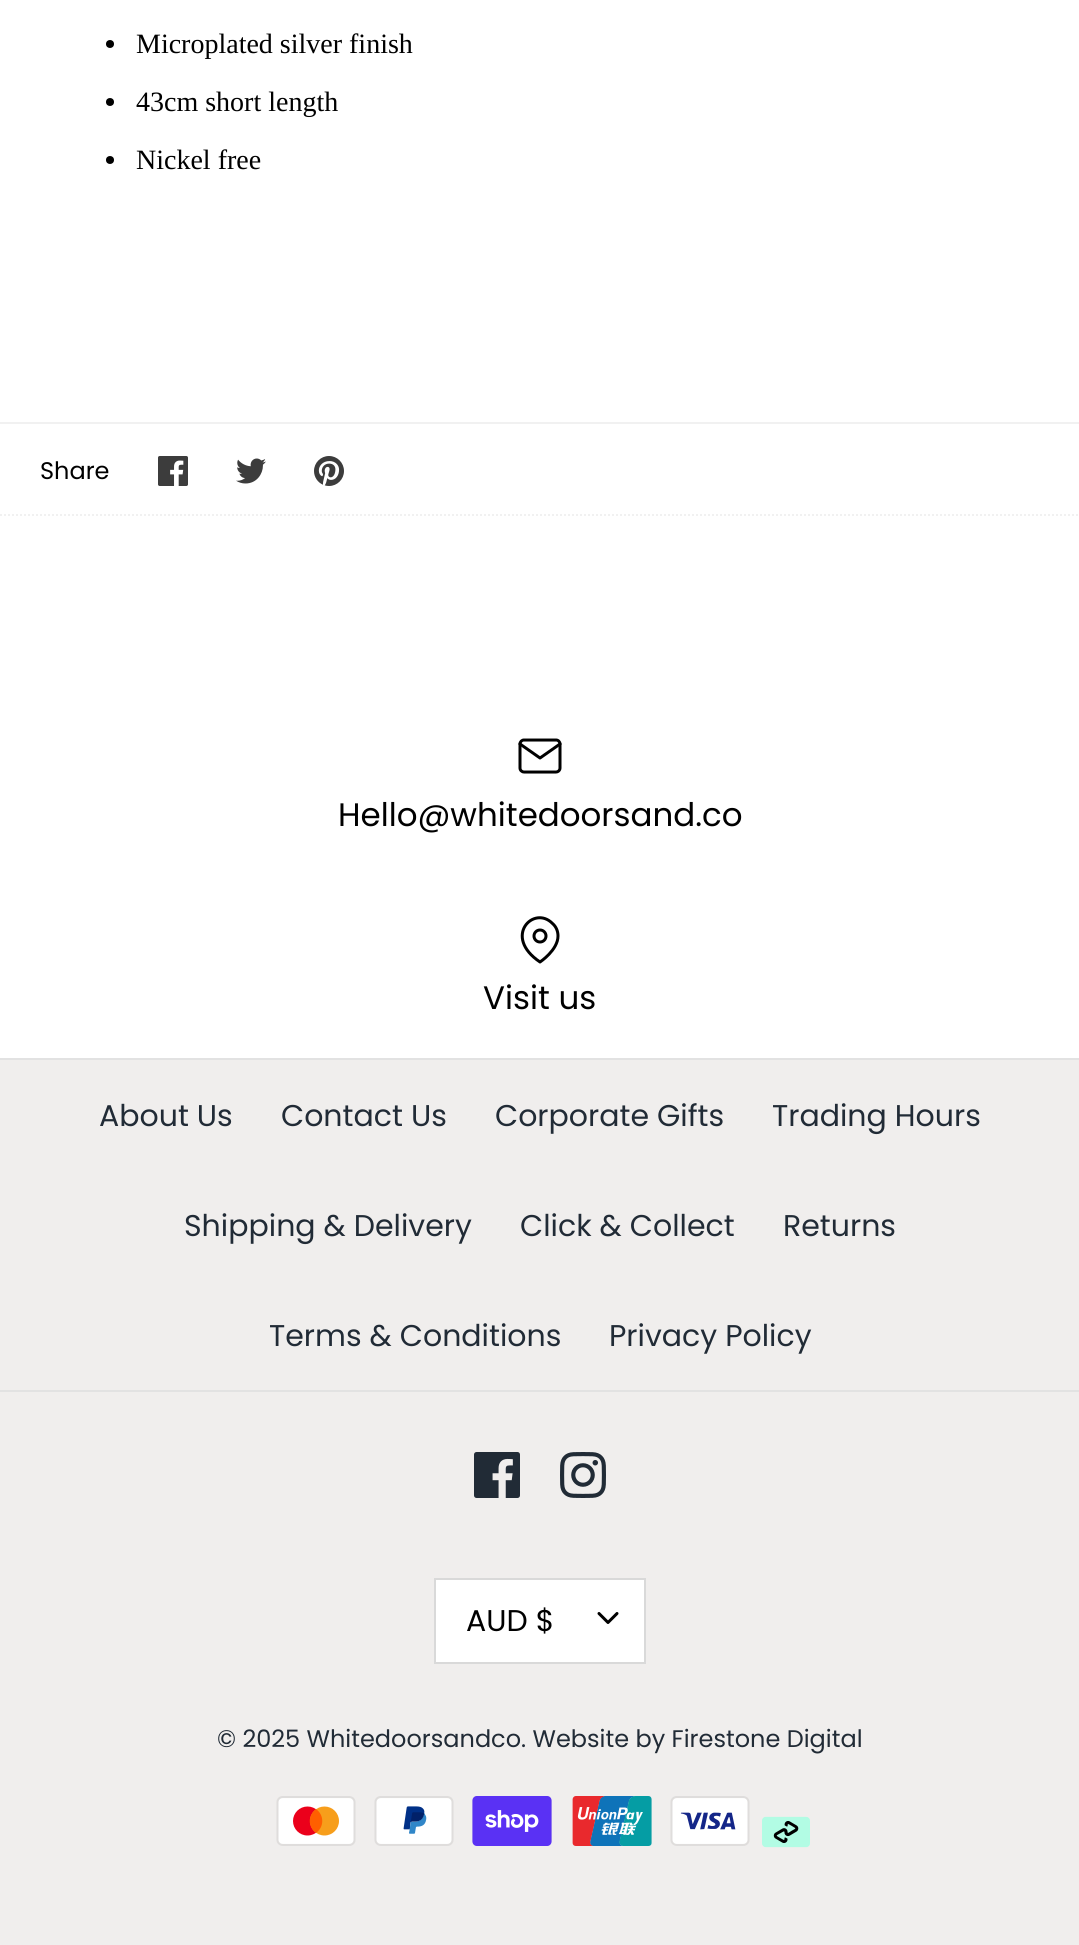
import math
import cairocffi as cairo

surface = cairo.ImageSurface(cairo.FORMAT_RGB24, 1079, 1945)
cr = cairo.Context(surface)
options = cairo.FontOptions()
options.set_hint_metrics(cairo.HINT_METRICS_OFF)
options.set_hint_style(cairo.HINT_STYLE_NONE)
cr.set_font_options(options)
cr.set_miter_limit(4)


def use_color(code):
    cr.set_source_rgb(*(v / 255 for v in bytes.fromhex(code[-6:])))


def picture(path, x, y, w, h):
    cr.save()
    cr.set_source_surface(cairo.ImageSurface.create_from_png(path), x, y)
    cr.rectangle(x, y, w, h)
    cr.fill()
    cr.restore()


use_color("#ffffff")
cr.paint()
use_color("#000000")
cr.arc(110, 44, 4, 0, 2 * math.pi)
cr.fill()
cr.select_font_face("Liberation Serif")
cr.set_font_size(28)
cr.move_to(136, 53)
cr.show_text("Microplated silver finish")
cr.new_path()
cr.arc(110, 102, 4, 0, 2 * math.pi)
cr.fill()
cr.move_to(136, 111)
cr.show_text("43cm short length")
cr.new_path()
cr.arc(110, 160, 4, 0, 2 * math.pi)
cr.fill()
cr.move_to(136, 169)
cr.show_text("Nickel free")
use_color("#f1f1f1")
cr.rectangle(0, 422, 1079, 2)
cr.fill()
cr.new_path()
cr.move_to(0, 515)
cr.line_to(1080, 515)
cr.set_dash([2, 2])
cr.stroke()
cr.select_font_face("Poppins")
cr.set_font_size(24)
use_color("#000000")
cr.move_to(40, 479)
cr.show_text("Share")
picture("img1.png", 158, 456, 30, 30)
picture("img2.png", 236, 458, 30, 26)
picture("img3.png", 314, 456, 30, 30)
use_color("#f0eeed")
cr.rectangle(0, 1060, 1079, 885)
cr.fill()
picture("img4.png", 518, 738, 44, 36)
cr.set_font_size(32.5)
use_color("#000000")
cr.move_to(338, 826)
cr.show_text("Hello@whitedoorsand.co")
cr.new_path()
cr.move_to(558, 936)
cr.curve_to(558, 950, 540, 962, 540, 962)
cr.curve_to(502, 936.5, 534, 904.5, 552.5, 923.5)
cr.curve_to(556, 926.5, 558, 931, 558, 936)
cr.close_path()
cr.set_line_width(3)
cr.set_line_cap(cairo.LINE_CAP_ROUND)
cr.set_line_join(cairo.LINE_JOIN_ROUND)
cr.set_dash([])
cr.stroke()
cr.arc(540, 936, 6, 0, 2 * math.pi)
cr.set_line_cap(cairo.LINE_CAP_BUTT)
cr.set_line_join(cairo.LINE_JOIN_MITER)
cr.stroke()
cr.move_to(483, 1009)
cr.show_text("Visit us")
use_color("#e2e2e2")
cr.rectangle(0, 1058, 1079, 2)
cr.fill()
cr.rectangle(0, 1390, 1079, 2)
cr.fill()
cr.set_font_size(30)
use_color("#212b36")
cr.move_to(99, 1126)
cr.show_text("About Us")
cr.move_to(281, 1126)
cr.show_text("Contact Us")
cr.move_to(495, 1126)
cr.show_text("Corporate Gifts")
cr.move_to(772, 1126)
cr.show_text("Trading Hours")
cr.move_to(184, 1236)
cr.show_text("Shipping & Delivery")
cr.move_to(520, 1236)
cr.show_text("Click & Collect")
cr.move_to(783, 1236)
cr.show_text("Returns")
cr.move_to(269, 1346)
cr.show_text("Terms & Conditions")
cr.move_to(609, 1346)
cr.show_text("Privacy Policy")
picture("img5.png", 474, 1452, 46, 46)
picture("img6.png", 560, 1452, 46, 46)
use_color("#ffffff")
cr.rectangle(435, 1579, 210, 84)
cr.fill_preserve()
use_color("#d9d9d9")
cr.set_line_width(2)
cr.stroke()
use_color("#000000")
cr.move_to(466, 1631)
cr.show_text("AUD $")
cr.new_path()
cr.move_to(599, 1613.5)
cr.line_to(608, 1622.5)
cr.line_to(617, 1613.5)
cr.set_line_width(3)
cr.set_line_cap(cairo.LINE_CAP_ROUND)
cr.set_line_join(cairo.LINE_JOIN_ROUND)
cr.stroke()
cr.set_font_size(24)
use_color("#212b36")
cr.move_to(217, 1747)
cr.show_text("© 2025 Whitedoorsandco. Website by Firestone Digital")
picture("img7.png", 276, 1796, 80, 50)
picture("img8.png", 374, 1796, 80, 50)
picture("img9.png", 472, 1796, 80, 50)
picture("img10.png", 572, 1796, 80, 50)
picture("img11.png", 670, 1796, 80, 50)
picture("img12.png", 762, 1816, 48, 32)
surface.write_to_png("result.png")
